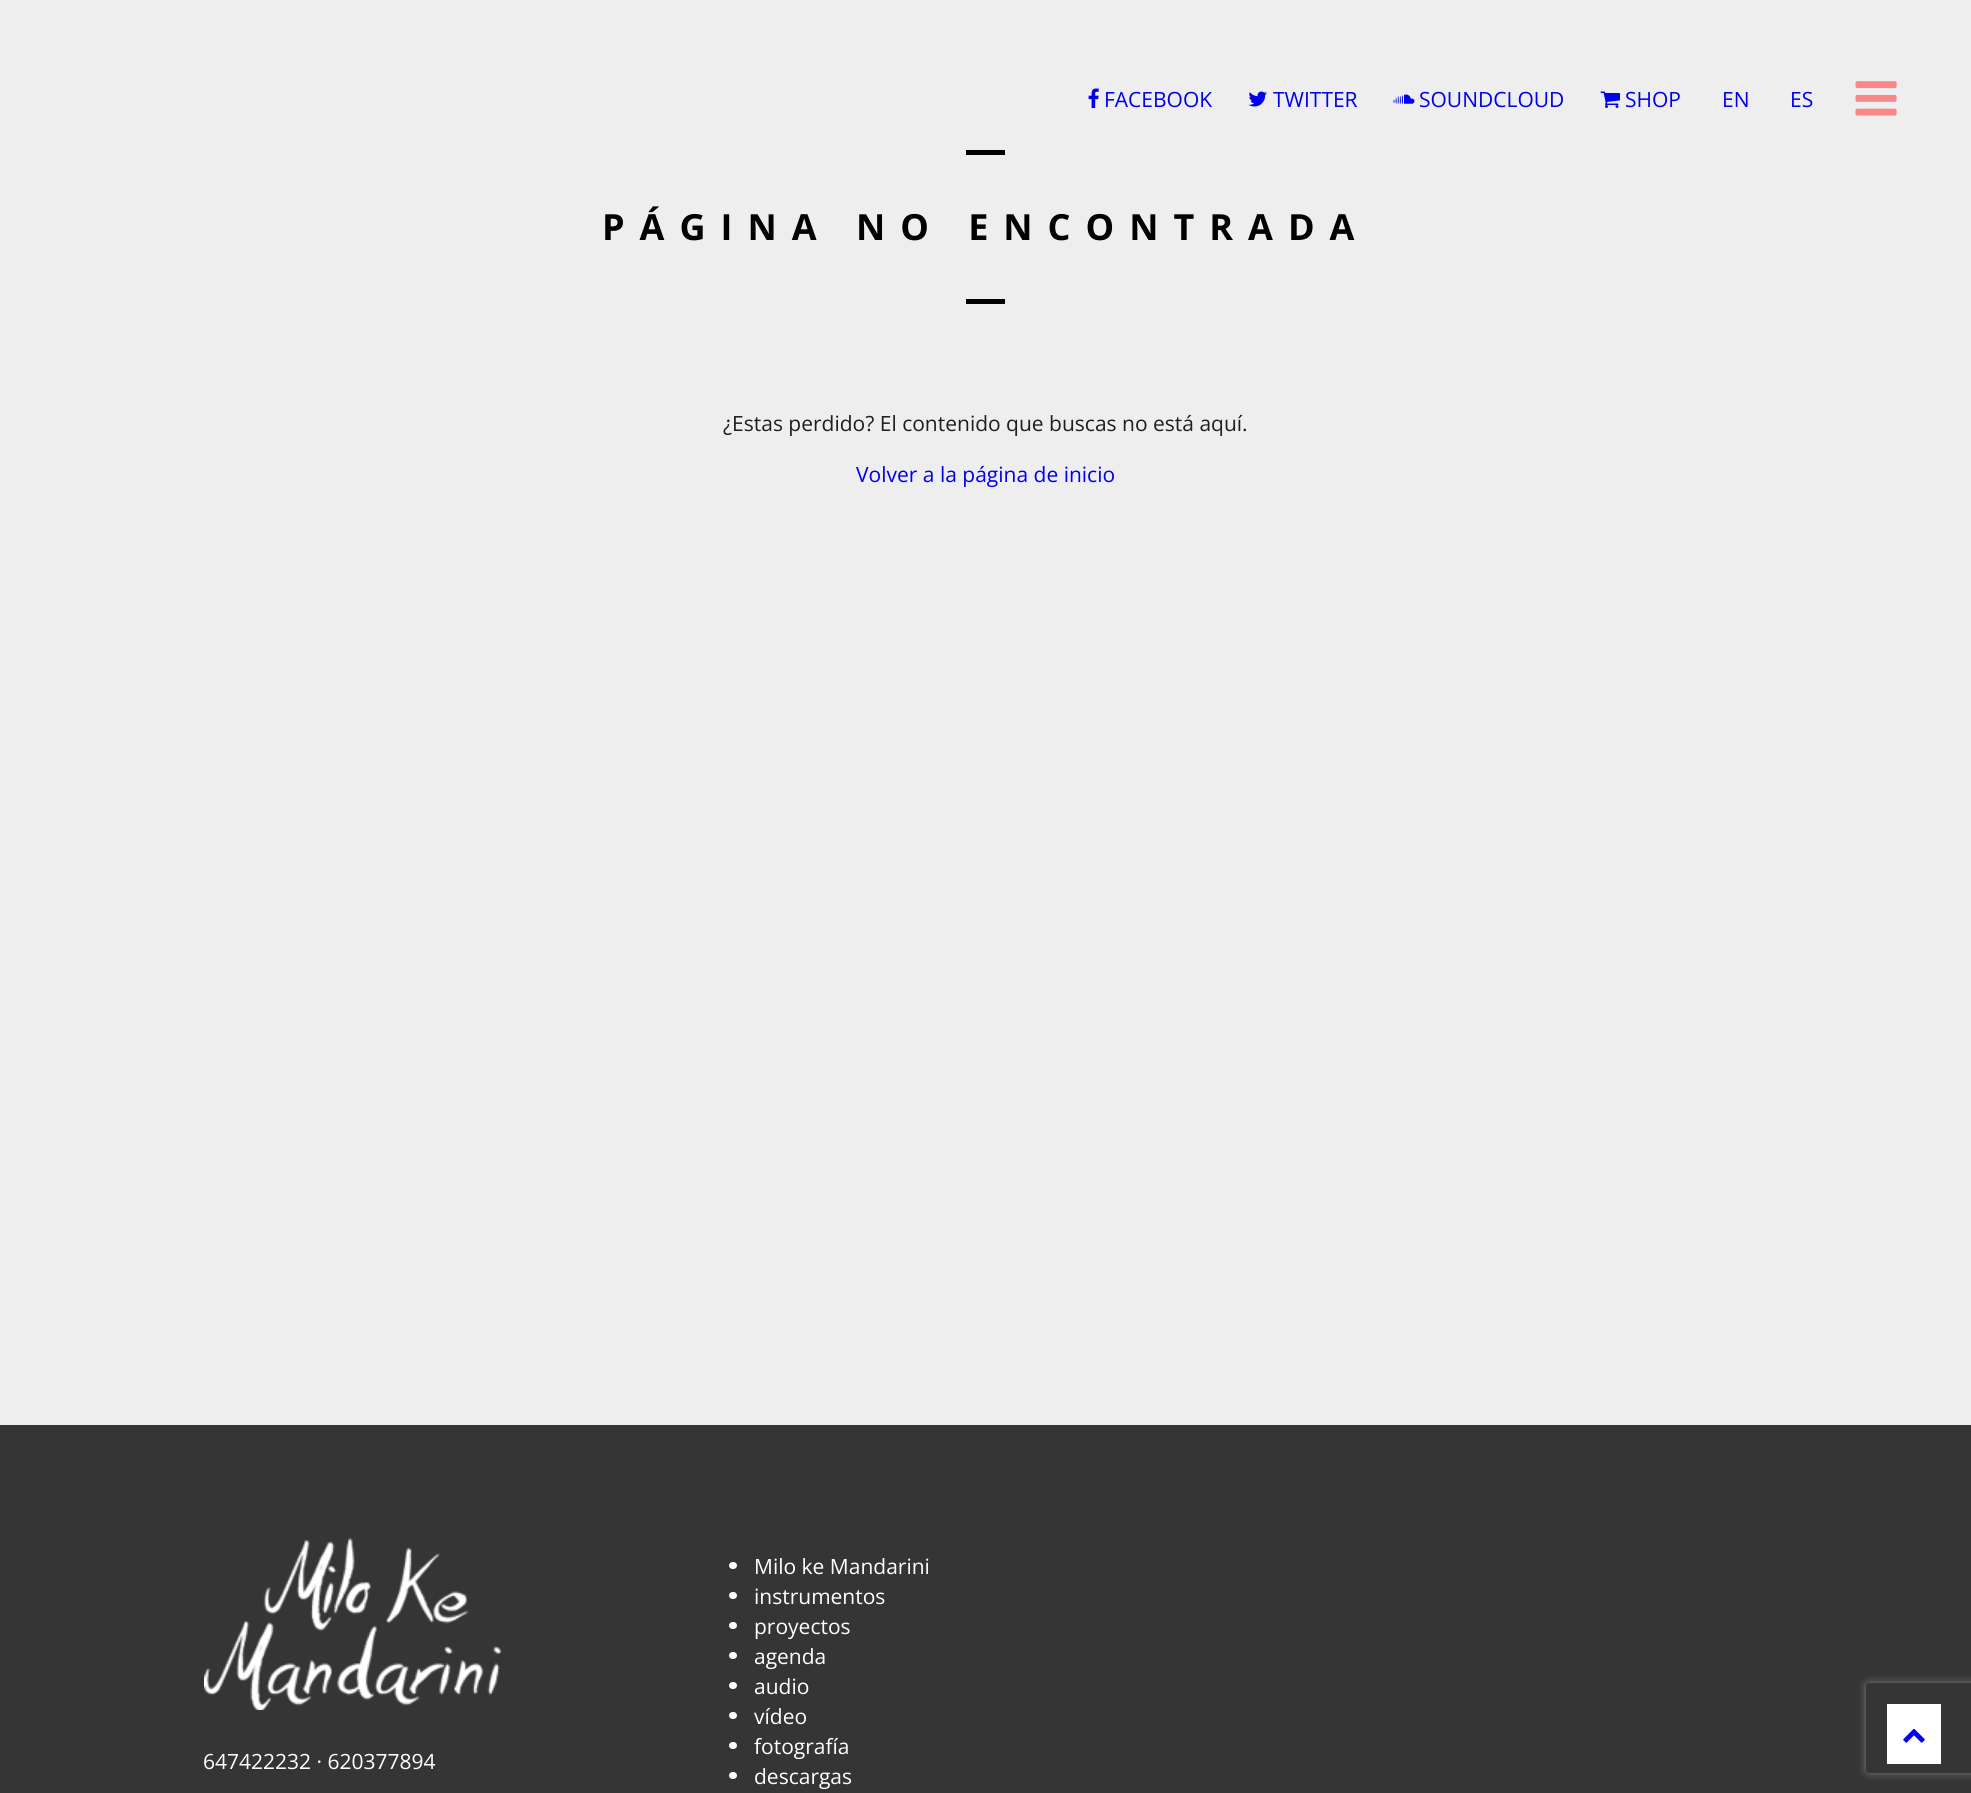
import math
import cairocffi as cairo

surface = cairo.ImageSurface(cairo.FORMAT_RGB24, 1971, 1793)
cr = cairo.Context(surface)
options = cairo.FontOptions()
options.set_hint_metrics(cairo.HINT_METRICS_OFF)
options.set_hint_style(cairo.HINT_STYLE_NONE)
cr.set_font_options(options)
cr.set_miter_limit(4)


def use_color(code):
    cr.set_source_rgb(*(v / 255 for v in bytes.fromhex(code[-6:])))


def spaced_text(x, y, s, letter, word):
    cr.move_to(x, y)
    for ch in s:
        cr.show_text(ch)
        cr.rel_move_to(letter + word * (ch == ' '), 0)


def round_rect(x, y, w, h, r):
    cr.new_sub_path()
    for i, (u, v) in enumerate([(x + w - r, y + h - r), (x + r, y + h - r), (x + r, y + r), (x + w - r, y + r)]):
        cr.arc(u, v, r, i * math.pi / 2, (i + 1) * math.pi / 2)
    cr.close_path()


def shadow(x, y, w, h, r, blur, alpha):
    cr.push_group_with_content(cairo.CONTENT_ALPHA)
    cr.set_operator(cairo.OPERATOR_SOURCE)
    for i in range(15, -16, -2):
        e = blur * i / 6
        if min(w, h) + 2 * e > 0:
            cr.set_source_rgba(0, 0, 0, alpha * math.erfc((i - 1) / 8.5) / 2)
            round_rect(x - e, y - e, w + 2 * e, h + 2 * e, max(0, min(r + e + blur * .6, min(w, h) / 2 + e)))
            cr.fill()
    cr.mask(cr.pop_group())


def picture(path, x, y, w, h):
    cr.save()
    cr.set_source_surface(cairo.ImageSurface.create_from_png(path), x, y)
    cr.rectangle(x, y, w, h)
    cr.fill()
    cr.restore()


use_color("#eeeeee")
cr.paint()
picture("img1.png", 1088, 88, 11, 20)
cr.select_font_face("Open Sans")
cr.set_font_size(21)
use_color("#0000ee")
cr.move_to(1104, 107)
cr.show_text("FACEBOOK")
picture("img2.png", 1248, 91, 19, 16)
cr.move_to(1273, 107)
cr.show_text("TWITTER")
picture("img3.png", 1393, 94, 22, 10)
cr.move_to(1419, 107)
cr.show_text("SOUNDCLOUD")
picture("img4.png", 1600, 91, 20, 17)
cr.move_to(1625, 107)
cr.show_text("SHOP")
cr.move_to(1722, 107)
cr.show_text("EN")
cr.move_to(1790, 107)
cr.show_text("ES")
picture("img5.png", 1855, 81, 42, 35)
use_color("#000000")
cr.rectangle(966, 150, 39, 5)
cr.fill()
cr.select_font_face("Open Sans", cairo.FONT_SLANT_NORMAL, cairo.FONT_WEIGHT_BOLD)
cr.set_font_size(36)
use_color("#010101")
spaced_text(602, 240, "PÁGINA NO ENCONTRADA", 15, 0)
use_color("#000000")
cr.rectangle(966, 299, 39, 5)
cr.fill()
cr.select_font_face("Open Sans")
cr.set_font_size(21)
use_color("#1f1f1f")
cr.move_to(723, 431)
cr.show_text("¿Estas perdido? El contenido que buscas no está aquí.")
use_color("#0000ee")
cr.move_to(856, 482)
cr.show_text("Volver a la página de inicio")
use_color("#353535")
cr.rectangle(0, 1425, 1971, 368)
cr.fill()
picture("img6.png", 204, 1537, 297, 173)
use_color("#ffffff")
cr.move_to(203, 1769)
cr.show_text("647422232 · 620377894")
round_rect(729, 1562, 8, 7, 3.5)
cr.fill()
cr.move_to(754, 1574)
cr.show_text("Milo ke Mandarini")
round_rect(729, 1592, 8, 7, 3.5)
cr.fill()
cr.move_to(754, 1604)
cr.show_text("instrumentos")
round_rect(729, 1622, 8, 7, 3.5)
cr.fill()
cr.move_to(754, 1634)
cr.show_text("proyectos")
round_rect(729, 1652, 8, 7, 3.5)
cr.fill()
cr.move_to(754, 1664)
cr.show_text("agenda")
round_rect(729, 1682, 8, 7, 3.5)
cr.fill()
cr.move_to(754, 1694)
cr.show_text("audio")
round_rect(729, 1712, 8, 7, 3.5)
cr.fill()
cr.move_to(754, 1724)
cr.show_text("vídeo")
round_rect(729, 1742, 8, 7, 3.5)
cr.fill()
cr.move_to(754, 1754)
cr.show_text("fotografía")
round_rect(729, 1772, 8, 7, 3.5)
cr.fill()
cr.move_to(754, 1784)
cr.show_text("descargas")
cr.rectangle(1887, 1704, 54, 60)
cr.fill()
picture("img7.png", 1903, 1728, 22, 15)
cr.save()
cr.set_fill_rule(cairo.FILL_RULE_EVEN_ODD)
cr.new_path()
cr.move_to(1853, 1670)
cr.line_to(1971, 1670)
cr.line_to(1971, 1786)
cr.line_to(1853, 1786)
cr.close_path()
cr.move_to(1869, 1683)
cr.line_to(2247, 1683)
cr.curve_to(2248.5, 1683, 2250, 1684.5, 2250, 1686)
cr.line_to(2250, 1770)
cr.curve_to(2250, 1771.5, 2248.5, 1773, 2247, 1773)
cr.line_to(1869, 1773)
cr.curve_to(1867.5, 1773, 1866, 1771.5, 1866, 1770)
cr.line_to(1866, 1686)
cr.curve_to(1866, 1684.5, 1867.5, 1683, 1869, 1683)
cr.close_path()
cr.clip()
use_color("#808080")
shadow(1866, 1683, 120, 90, 3, 4, 1)
cr.restore()
surface.write_to_png("result.png")
